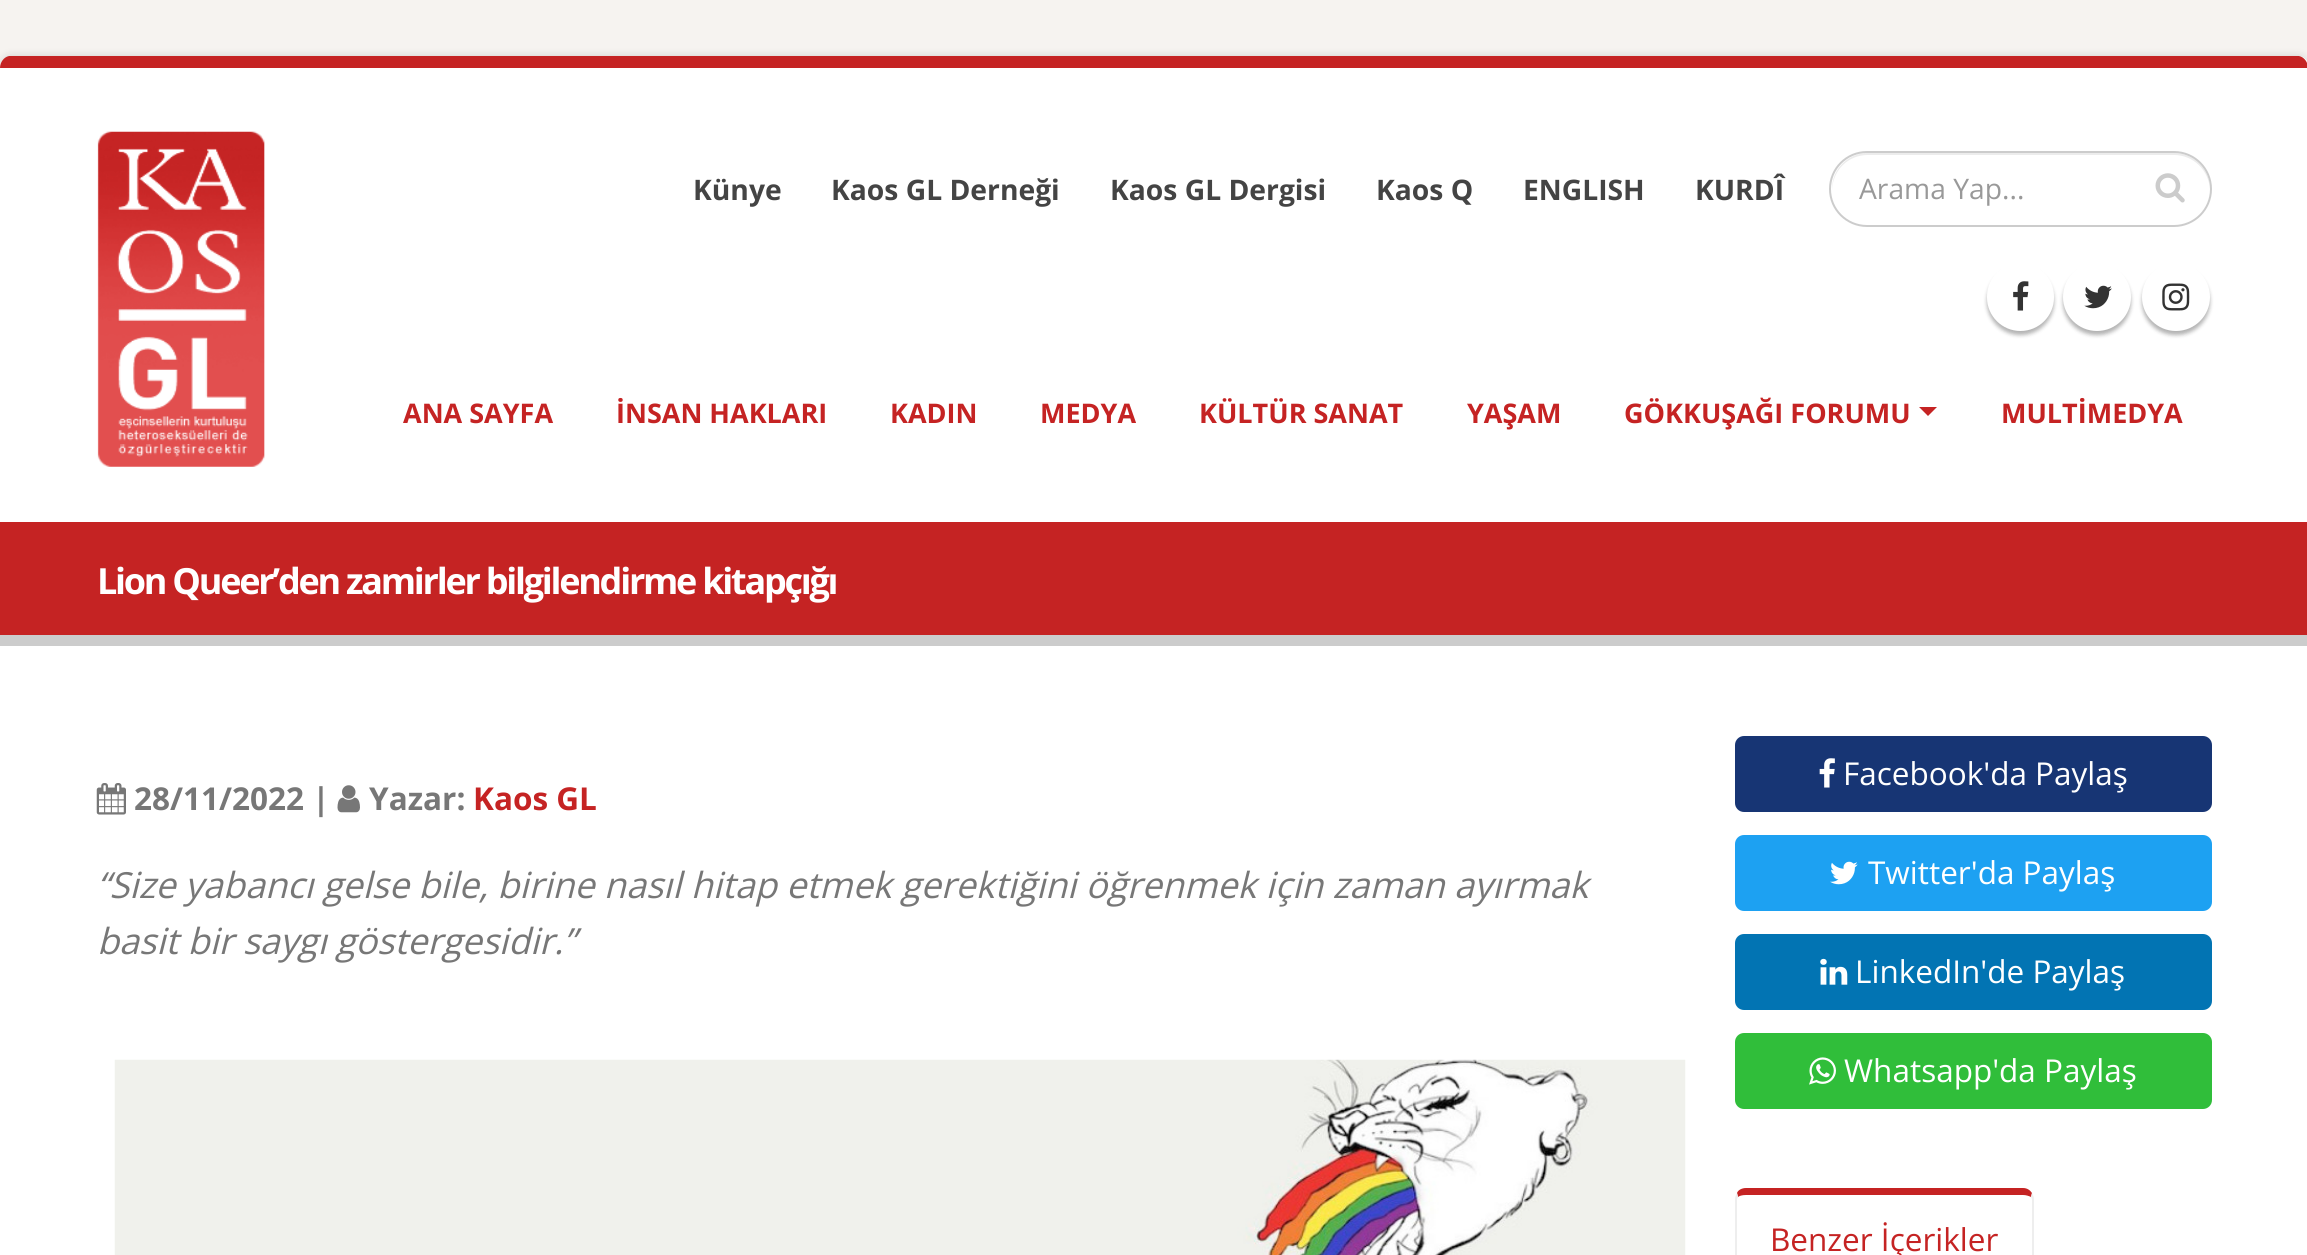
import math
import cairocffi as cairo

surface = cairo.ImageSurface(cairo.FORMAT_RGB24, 2307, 1255)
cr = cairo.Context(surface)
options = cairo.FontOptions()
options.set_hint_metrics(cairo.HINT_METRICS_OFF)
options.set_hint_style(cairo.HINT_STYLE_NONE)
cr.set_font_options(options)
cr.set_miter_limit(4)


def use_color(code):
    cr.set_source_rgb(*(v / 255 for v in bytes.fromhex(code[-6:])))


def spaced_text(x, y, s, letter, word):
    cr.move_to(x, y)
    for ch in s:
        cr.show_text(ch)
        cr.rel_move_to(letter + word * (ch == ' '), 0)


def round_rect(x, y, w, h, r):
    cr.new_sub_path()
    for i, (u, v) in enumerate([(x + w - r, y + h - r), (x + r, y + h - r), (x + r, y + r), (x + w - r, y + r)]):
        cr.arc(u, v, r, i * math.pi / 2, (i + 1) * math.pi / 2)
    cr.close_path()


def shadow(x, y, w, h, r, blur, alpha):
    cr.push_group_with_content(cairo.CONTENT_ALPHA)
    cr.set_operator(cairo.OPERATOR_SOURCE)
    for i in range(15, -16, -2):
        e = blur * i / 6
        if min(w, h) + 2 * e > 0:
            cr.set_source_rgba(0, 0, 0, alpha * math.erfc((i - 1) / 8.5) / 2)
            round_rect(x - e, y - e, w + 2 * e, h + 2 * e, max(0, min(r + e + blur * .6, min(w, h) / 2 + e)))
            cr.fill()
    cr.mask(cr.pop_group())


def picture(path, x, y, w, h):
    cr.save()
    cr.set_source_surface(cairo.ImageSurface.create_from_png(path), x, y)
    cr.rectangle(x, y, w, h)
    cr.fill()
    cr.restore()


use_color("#f6f3f0")
cr.paint()
use_color("#000000")
shadow(0, 56, 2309, 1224, 11, 4.5, 0.15)
use_color("#ffffff")
round_rect(0, 56, 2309, 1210, 11)
cr.fill()
use_color("#c52323")
cr.new_path()
cr.move_to(2299, 56)
cr.line_to(9, 56)
cr.curve_to(4, 57, 0, 62, 0, 68)
cr.line_to(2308, 68)
cr.curve_to(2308, 62, 2304, 57, 2299, 56)
cr.close_path()
cr.fill()
picture("img1.png", 97, 131, 168, 336)
cr.select_font_face("Open Sans", cairo.FONT_SLANT_NORMAL, cairo.FONT_WEIGHT_BOLD)
cr.set_font_size(28.25)
use_color("#444444")
cr.move_to(693, 200)
cr.show_text("Künye")
cr.move_to(831, 200)
cr.show_text("Kaos GL Derneği")
cr.move_to(1110, 200)
cr.show_text("Kaos GL Dergisi")
cr.move_to(1376, 200)
cr.show_text("Kaos Q")
cr.move_to(1523, 200)
cr.show_text("ENGLISH")
cr.move_to(1695, 200)
cr.show_text("KURDÎ")
use_color("#ececec")
cr.new_path()
cr.move_to(1868, 155)
cr.line_to(2174, 155)
cr.curve_to(2193, 155, 2209, 170, 2210, 190)
cr.line_to(2210, 189)
cr.curve_to(2210, 169, 2194, 153, 2174, 153)
cr.line_to(1868, 153)
cr.curve_to(1848, 153, 1832, 169, 1832, 189)
cr.line_to(1832, 190)
cr.curve_to(1833, 170, 1848, 155, 1868, 155)
cr.close_path()
cr.fill()
round_rect(1830, 152, 381, 74, 37)
use_color("#cccccc")
cr.stroke()
cr.select_font_face("Open Sans")
use_color("#999999")
cr.move_to(1859, 199)
cr.show_text("Arama Yap...")
picture("img2.png", 2155, 173, 30, 30)
use_color("#000000")
shadow(1987, 268, 67, 67, 33.5, 2, 0.3)
use_color("#ffffff")
round_rect(1987, 263, 67, 68, 33.5)
cr.fill()
picture("img3.png", 2013, 281, 16, 30)
use_color("#000000")
shadow(2063, 268, 68, 67, 33.5, 2, 0.3)
use_color("#ffffff")
cr.arc(2097, 297, 34, 0, 2 * math.pi)
cr.fill()
picture("img4.png", 2084, 285, 28, 24)
use_color("#000000")
shadow(2142, 268, 68, 67, 33.5, 2, 0.3)
use_color("#ffffff")
cr.arc(2176, 297, 34, 0, 2 * math.pi)
cr.fill()
picture("img5.png", 2162, 283, 28, 28)
cr.select_font_face("Open Sans", cairo.FONT_SLANT_NORMAL, cairo.FONT_WEIGHT_BOLD)
cr.set_font_size(27)
use_color("#c52323")
cr.move_to(403, 423)
cr.show_text("ANA SAYFA")
cr.move_to(616, 423)
cr.show_text("İNSAN HAKLARI")
cr.move_to(890, 423)
cr.show_text("KADIN")
cr.move_to(1040, 423)
cr.show_text("MEDYA")
cr.move_to(1199, 423)
cr.show_text("KÜLTÜR SANAT")
cr.move_to(1467, 423)
cr.show_text("YAŞAM")
cr.move_to(1624, 423)
cr.show_text("GÖKKUŞAĞI FORUMU")
cr.new_path()
cr.move_to(1919, 407)
cr.line_to(1937, 407)
cr.line_to(1928, 416)
cr.close_path()
cr.fill()
cr.move_to(2001, 423)
cr.show_text("MULTİMEDYA")
cr.rectangle(0, 522, 2307, 113)
cr.fill()
use_color("#cccccc")
cr.rectangle(0, 635, 2307, 11)
cr.fill()
cr.set_font_size(36)
use_color("#ffffff")
spaced_text(97, 594, "Lion Queer’den zamirler bilgilendirme kitapçığı", -2.25, 0)
picture("img6.png", 96, 783, 30, 32)
cr.set_font_size(31.5)
use_color("#777777")
cr.move_to(134, 810)
cr.show_text("28/11/2022 |")
picture("img7.png", 337, 785, 23, 28)
cr.move_to(369, 810)
cr.show_text("Yazar:")
use_color("#c52323")
cr.move_to(473, 810)
cr.show_text("Kaos GL")
cr.select_font_face("Open Sans", cairo.FONT_SLANT_ITALIC)
cr.set_font_size(36)
use_color("#777777")
cr.move_to(97, 898)
cr.show_text("“Size yabancı gelse bile, birine nasıl hitap etmek gerektiğini öğrenmek için zaman ayırmak")
cr.move_to(97, 954)
cr.show_text("basit bir saygı göstergesidir.”")
picture("img8.png", 114, 1059, 1572, 196)
use_color("#173574")
round_rect(1735, 736, 477, 76, 9)
cr.fill()
picture("img9.png", 1819, 758, 16, 30)
cr.select_font_face("Open Sans")
cr.set_font_size(31.5)
use_color("#ffffff")
cr.move_to(1843, 785)
cr.show_text("Facebook'da Paylaş")
use_color("#1da1f2")
round_rect(1735, 835, 477, 76, 9)
cr.fill()
picture("img10.png", 1830, 861, 28, 24)
use_color("#ffffff")
cr.move_to(1868, 884)
cr.show_text("Twitter'da Paylaş")
use_color("#0274b3")
round_rect(1735, 934, 477, 76, 9)
cr.fill()
picture("img11.png", 1820, 958, 28, 27)
use_color("#ffffff")
cr.move_to(1855, 983)
cr.show_text("LinkedIn'de Paylaş")
use_color("#30be3a")
round_rect(1735, 1033, 477, 76, 9)
cr.fill()
picture("img12.png", 1809, 1057, 27, 28)
use_color("#ffffff")
cr.move_to(1844, 1082)
cr.show_text("Whatsapp'da Paylaş")
use_color("#c52323")
cr.new_path()
cr.move_to(1746, 1188)
cr.curve_to(1742, 1188, 1738, 1190, 1737, 1193)
cr.line_to(1738, 1197)
cr.curve_to(1739, 1196, 1742, 1195, 1746, 1195)
cr.line_to(2023, 1195)
cr.curve_to(2026, 1195, 2029, 1196, 2031, 1197)
cr.line_to(2032, 1193)
cr.curve_to(2030, 1190, 2027, 1188, 2023, 1188)
cr.close_path()
cr.fill()
use_color("#eeeeee")
cr.new_path()
cr.move_to(2034, 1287)
cr.line_to(2034, 1199)
cr.curve_to(2034, 1197, 2033, 1195, 2032, 1193)
cr.line_to(2031, 1197)
cr.line_to(2032, 1199)
cr.line_to(2032, 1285)
cr.close_path()
cr.fill()
cr.new_path()
cr.move_to(1737, 1193)
cr.curve_to(1736, 1195, 1735, 1197, 1735, 1199)
cr.line_to(1735, 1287)
cr.line_to(1737, 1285)
cr.line_to(1737, 1199)
cr.line_to(1738, 1197)
cr.close_path()
cr.fill()
use_color("#c52323")
cr.move_to(1770, 1251)
cr.show_text("Benzer İçerikler")
surface.write_to_png("result.png")
